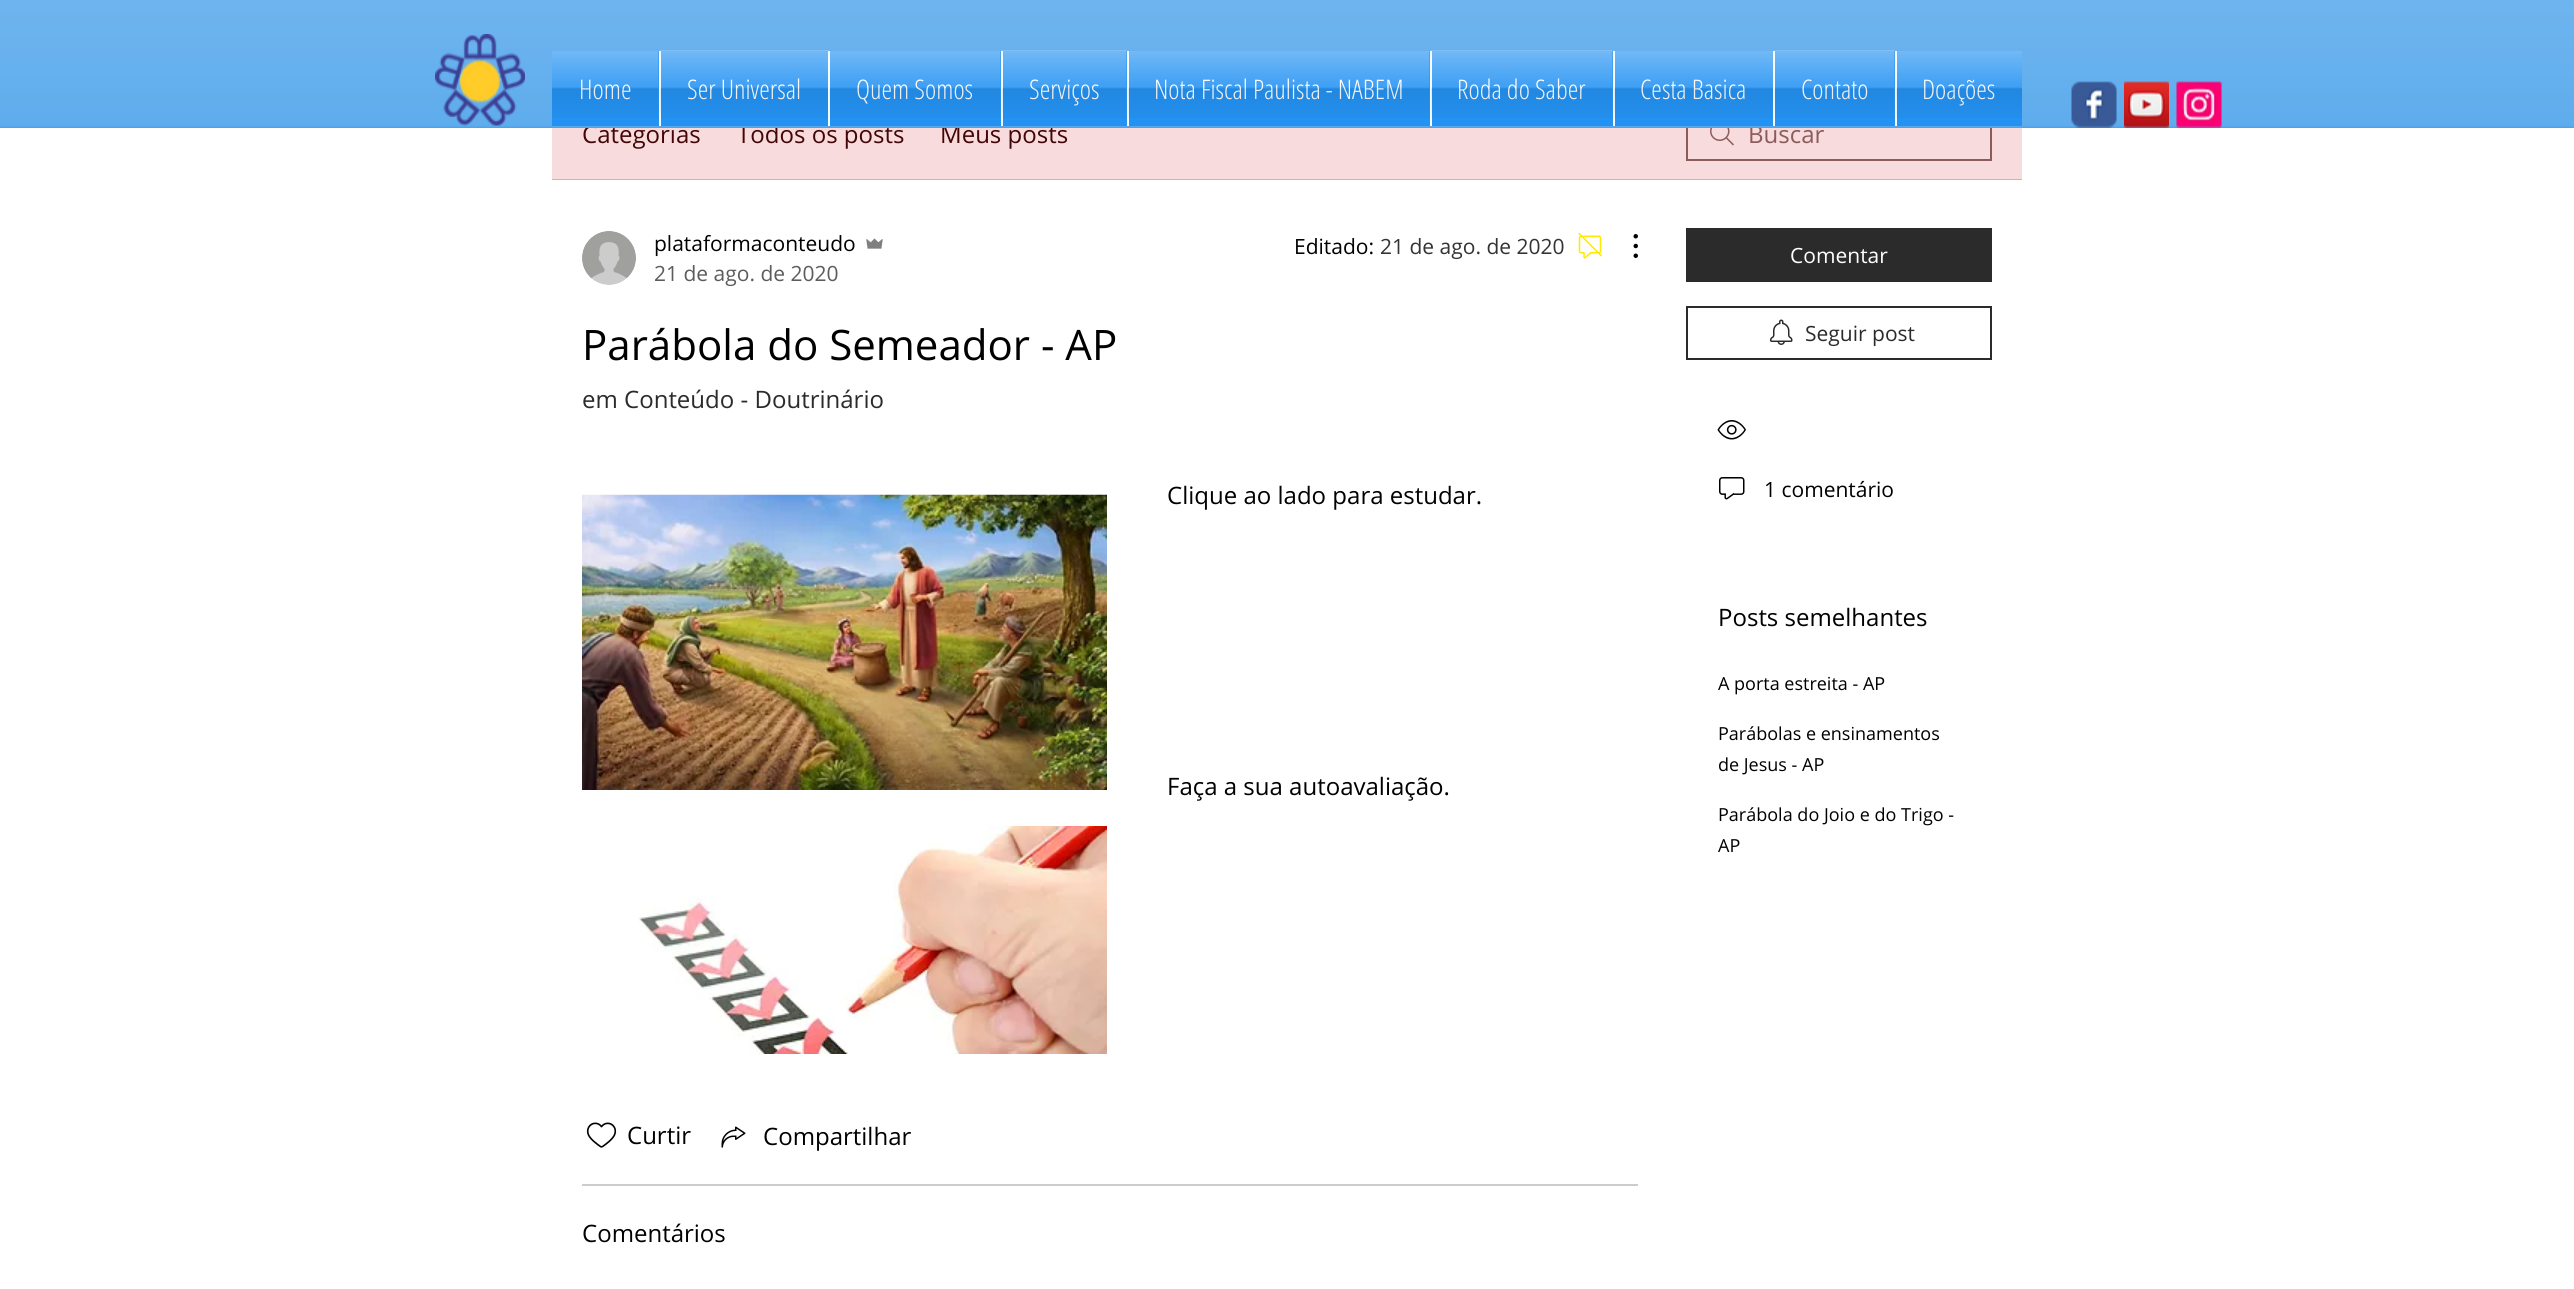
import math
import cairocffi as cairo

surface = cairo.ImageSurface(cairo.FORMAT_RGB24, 2574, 1289)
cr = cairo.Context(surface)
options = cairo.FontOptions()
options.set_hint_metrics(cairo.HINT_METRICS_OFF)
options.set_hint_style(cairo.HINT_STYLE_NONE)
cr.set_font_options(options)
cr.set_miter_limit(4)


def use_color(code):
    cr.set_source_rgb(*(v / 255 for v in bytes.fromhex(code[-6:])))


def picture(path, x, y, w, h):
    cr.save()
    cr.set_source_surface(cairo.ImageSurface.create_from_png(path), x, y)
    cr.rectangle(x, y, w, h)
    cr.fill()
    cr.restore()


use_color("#ffffff")
cr.paint()
use_color("#f8dbdc")
cr.rectangle(552, 128, 1470, 51)
cr.fill()
cr.select_font_face("Open Sans")
cr.set_font_size(24)
use_color("#440506")
cr.move_to(582, 143)
cr.show_text("Categorias")
cr.move_to(737, 143)
cr.show_text("Todos os posts")
cr.move_to(940, 143)
cr.show_text("Meus posts")
picture("img15.png", 1710, 128, 24, 18)
cr.rectangle(1687, 108, 304, 52)
use_color("#8c5b5c")
cr.stroke()
cr.move_to(1748, 143)
cr.show_text("Buscar")
use_color("#3d9be9")
cr.rectangle(0, 0, 2574, 128)
cr.fill()
picture("img1.png", 0, 0, 2574, 128)
picture("img2.png", 435, 34, 90, 92)
use_color("#2492f2")
cr.rectangle(552, 51, 107, 75)
cr.fill()
cr.select_font_face("Open Sans Condensed Light")
cr.set_font_size(27)
use_color("#ffffff")
cr.move_to(579, 99)
cr.show_text("Home")
picture("img3.png", 552, 51, 107, 67)
use_color("#2492f2")
cr.rectangle(661, 51, 167, 75)
cr.fill()
use_color("#f8fcff")
cr.rectangle(659, 51, 2, 75)
cr.fill()
use_color("#ffffff")
cr.move_to(687, 99)
cr.show_text("Ser Universal")
picture("img4.png", 660, 50, 168, 68)
use_color("#2492f2")
cr.rectangle(830, 51, 171, 75)
cr.fill()
use_color("#f8fcff")
cr.rectangle(828, 51, 2, 75)
cr.fill()
use_color("#ffffff")
cr.move_to(856, 99)
cr.show_text("Quem Somos")
picture("img5.png", 829, 51, 172, 67)
use_color("#2492f2")
cr.rectangle(1003, 51, 124, 75)
cr.fill()
use_color("#f8fcff")
cr.rectangle(1001, 51, 2, 75)
cr.fill()
use_color("#ffffff")
cr.move_to(1029, 99)
cr.show_text("Serviços")
picture("img6.png", 1002, 50, 125, 68)
use_color("#2492f2")
cr.rectangle(1129, 51, 301, 75)
cr.fill()
use_color("#f8fcff")
cr.rectangle(1127, 51, 2, 75)
cr.fill()
use_color("#ffffff")
cr.move_to(1154, 99)
cr.show_text("Nota Fiscal Paulista - NABEM")
picture("img7.png", 1128, 51, 302, 67)
use_color("#2492f2")
cr.rectangle(1432, 51, 181, 75)
cr.fill()
use_color("#f8fcff")
cr.rectangle(1430, 51, 2, 75)
cr.fill()
use_color("#ffffff")
cr.move_to(1457, 99)
cr.show_text("Roda do Saber")
picture("img8.png", 1431, 50, 182, 68)
use_color("#2492f2")
cr.rectangle(1615, 51, 158, 75)
cr.fill()
use_color("#f8fcff")
cr.rectangle(1613, 51, 2, 75)
cr.fill()
use_color("#ffffff")
cr.move_to(1640, 99)
cr.show_text("Cesta Basica")
picture("img9.png", 1614, 51, 159, 67)
use_color("#2492f2")
cr.rectangle(1775, 51, 120, 75)
cr.fill()
use_color("#f8fcff")
cr.rectangle(1773, 51, 2, 75)
cr.fill()
use_color("#ffffff")
cr.move_to(1801, 99)
cr.show_text("Contato")
picture("img10.png", 1774, 50, 121, 68)
use_color("#2492f2")
cr.rectangle(1897, 51, 125, 75)
cr.fill()
use_color("#f8fcff")
cr.rectangle(1895, 51, 2, 75)
cr.fill()
use_color("#ffffff")
cr.move_to(1922, 99)
cr.show_text("Doações")
picture("img11.png", 1896, 51, 126, 67)
picture("img12.png", 2071, 81, 46, 47)
picture("img13.png", 2124, 81, 45, 47)
picture("img14.png", 2176, 81, 46, 47)
use_color("#d4b0b1")
cr.rectangle(552, 179, 1470, 1)
cr.fill()
picture("img16.png", 582, 231, 54, 54)
cr.select_font_face("Open Sans")
cr.set_font_size(21)
use_color("#000000")
cr.move_to(654, 251)
cr.show_text("plataformaconteudo")
picture("img17.png", 866, 238, 17, 11)
use_color("#5c5c5c")
cr.move_to(654, 281)
cr.show_text("21 de ago. de 2020")
use_color("#000000")
cr.move_to(1294, 254)
cr.show_text("Editado:")
use_color("#333333")
cr.move_to(1380, 254)
cr.show_text("21 de ago. de 2020")
picture("img18.png", 1578, 233, 24, 26)
picture("img19.png", 1633, 234, 5, 24)
cr.set_font_size(42)
use_color("#000000")
cr.move_to(582, 360)
cr.show_text("Parábola do Semeador - AP")
cr.set_font_size(24)
use_color("#2b2b2b")
cr.move_to(582, 408)
cr.show_text("em Conteúdo - Doutrinário")
picture("img20.png", 582, 494, 525, 296)
use_color("#000000")
cr.move_to(1167, 504)
cr.show_text("Clique ao lado para estudar.")
cr.move_to(1167, 795)
cr.show_text("Faça a sua autoavaliação.")
picture("img21.png", 638, 826, 469, 228)
picture("img22.png", 586, 1122, 31, 26)
cr.move_to(627, 1144)
cr.show_text("Curtir")
picture("img23.png", 721, 1126, 25, 22)
cr.move_to(763, 1145)
cr.show_text("Compartilhar")
use_color("#cccccc")
cr.rectangle(582, 1184, 1056, 2)
cr.fill()
use_color("#000000")
cr.move_to(582, 1242)
cr.show_text("Comentários")
use_color("#2b2b2b")
cr.rectangle(1686, 228, 306, 54)
cr.fill()
cr.set_font_size(21)
use_color("#ffffff")
cr.move_to(1790, 263)
cr.show_text("Comentar")
cr.rectangle(1687, 307, 304, 52)
use_color("#2b2b2b")
cr.stroke()
picture("img24.png", 1770, 319, 23, 26)
cr.move_to(1805, 341)
cr.show_text("Seguir post")
picture("img25.png", 1717, 420, 29, 20)
picture("img26.png", 1719, 477, 26, 23)
use_color("#000000")
cr.move_to(1764, 497)
cr.show_text("1 comentário")
cr.set_font_size(24)
cr.move_to(1718, 626)
cr.show_text("Posts semelhantes")
cr.set_font_size(18)
cr.move_to(1718, 690)
cr.show_text("A porta estreita - AP")
cr.move_to(1718, 740)
cr.show_text("Parábolas e ensinamentos")
cr.move_to(1718, 771)
cr.show_text("de Jesus - AP")
cr.move_to(1718, 821)
cr.show_text("Parábola do Joio e do Trigo -")
cr.move_to(1718, 852)
cr.show_text("AP")
surface.write_to_png("result.png")
